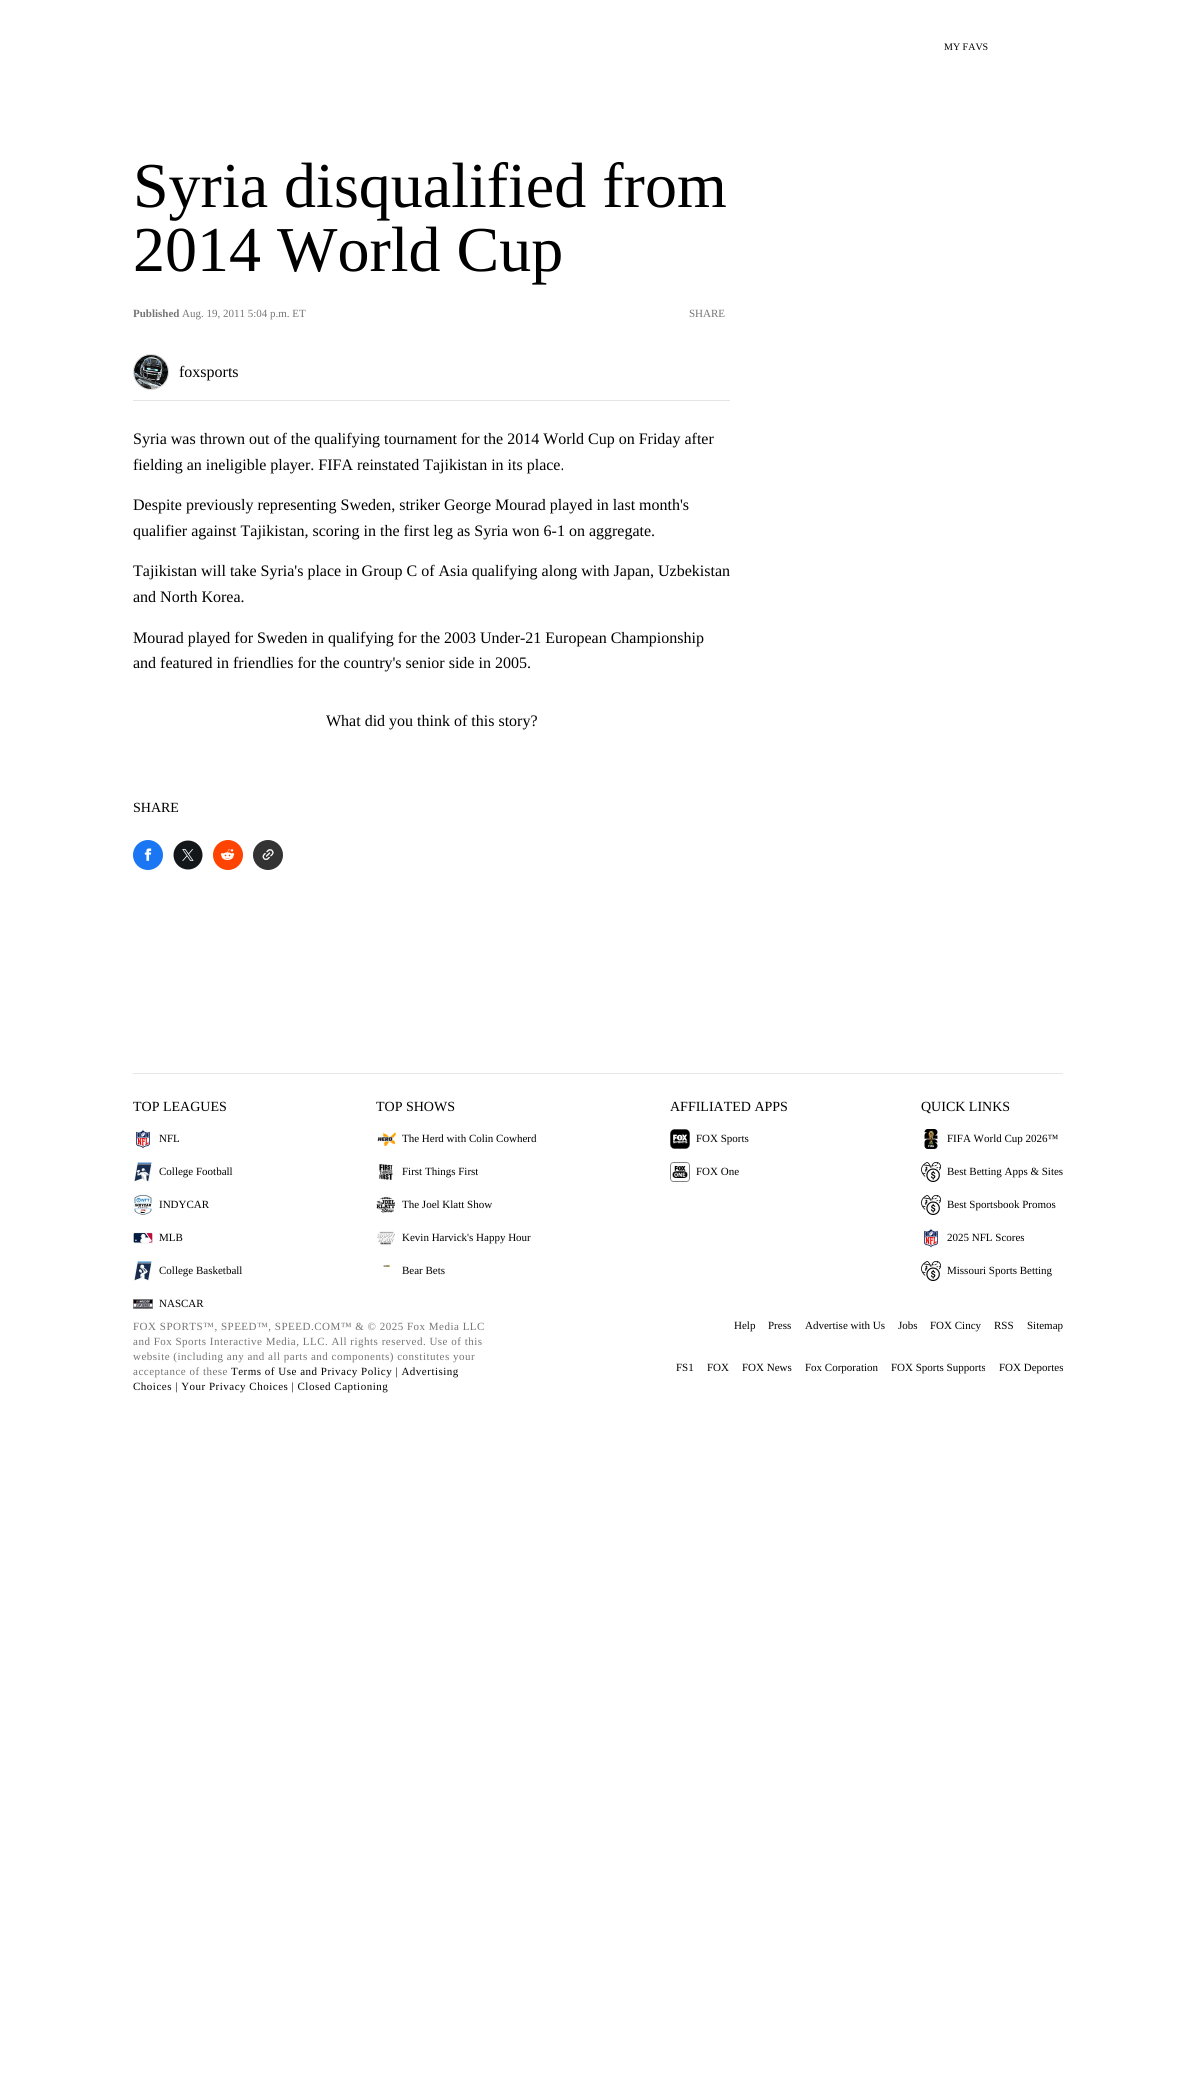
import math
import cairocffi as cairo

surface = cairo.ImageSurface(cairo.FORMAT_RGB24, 1196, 2084)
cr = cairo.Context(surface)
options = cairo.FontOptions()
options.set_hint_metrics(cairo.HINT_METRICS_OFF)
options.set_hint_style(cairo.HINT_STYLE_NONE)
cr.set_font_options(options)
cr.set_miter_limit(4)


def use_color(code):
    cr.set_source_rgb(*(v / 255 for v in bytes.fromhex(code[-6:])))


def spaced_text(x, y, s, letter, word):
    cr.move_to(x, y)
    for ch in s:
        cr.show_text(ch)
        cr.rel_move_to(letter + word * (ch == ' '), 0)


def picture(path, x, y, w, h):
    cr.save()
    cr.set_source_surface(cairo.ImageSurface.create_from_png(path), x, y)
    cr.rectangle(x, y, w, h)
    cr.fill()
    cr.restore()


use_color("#ffffff")
cr.paint()
cr.select_font_face("Liberation Serif")
cr.set_font_size(10)
use_color("#000000")
cr.move_to(944, 50)
cr.show_text("MY FAVS")
cr.set_font_size(64)
cr.move_to(133, 207)
cr.show_text("Syria disqualified from")
cr.move_to(133, 271)
cr.show_text("2014 World Cup")
cr.select_font_face("Liberation Serif", cairo.FONT_SLANT_NORMAL, cairo.FONT_WEIGHT_BOLD)
cr.set_font_size(11)
use_color("#757575")
cr.move_to(133, 317)
cr.show_text("Published")
cr.select_font_face("Liberation Serif")
cr.move_to(182, 317)
cr.show_text("Aug. 19, 2011 5:04 p.m. ET")
cr.move_to(689, 317)
cr.show_text("SHARE")
use_color("#e5e5e5")
cr.rectangle(133, 400, 597, 1)
cr.fill()
cr.arc(151, 372, 17.5, 0, 2 * math.pi)
use_color("#d9d9d9")
cr.set_line_width(1)
cr.stroke()
picture("img1.png", 134, 355, 34, 34)
cr.set_font_size(16)
use_color("#000000")
cr.move_to(179, 377)
cr.show_text("foxsports")
cr.move_to(133, 444)
cr.show_text("Syria was thrown out of the qualifying tournament for the 2014 World Cup on Friday after")
cr.move_to(133, 470)
cr.show_text("fielding an ineligible player. FIFA reinstated Tajikistan in its place.")
cr.move_to(133, 510)
cr.show_text("Despite previously representing Sweden, striker George Mourad played in last month's")
cr.move_to(133, 536)
cr.show_text("qualifier against Tajikistan, scoring in the first leg as Syria won 6-1 on aggregate.")
cr.move_to(133, 576)
cr.show_text("Tajikistan will take Syria's place in Group C of Asia qualifying along with Japan, Uzbekistan")
cr.move_to(133, 602)
cr.show_text("and North Korea.")
cr.move_to(133, 643)
cr.show_text("Mourad played for Sweden in qualifying for the 2003 Under-21 European Championship")
cr.move_to(133, 668)
cr.show_text("and featured in friendlies for the country's senior side in 2005.")
cr.move_to(326, 726)
cr.show_text("What did you think of this story?")
cr.set_font_size(14)
cr.move_to(133, 812)
cr.show_text("SHARE")
picture("img2.png", 133, 840, 30, 30)
picture("img3.png", 173, 840, 30, 30)
picture("img4.png", 213, 840, 30, 30)
picture("img5.png", 253, 840, 30, 30)
use_color("#e6e6e6")
cr.rectangle(133, 1073, 930, 1)
cr.fill()
use_color("#000000")
cr.move_to(133, 1111)
cr.show_text("TOP LEAGUES")
picture("img6.png", 135, 1129, 16, 20)
cr.set_font_size(11)
cr.move_to(159, 1142)
cr.show_text("NFL")
picture("img7.png", 133, 1162, 20, 20)
cr.move_to(159, 1175)
cr.show_text("College Football")
picture("img8.png", 134, 1195, 18, 20)
cr.move_to(159, 1208)
cr.show_text("INDYCAR")
picture("img9.png", 133, 1232, 20, 12)
cr.move_to(159, 1241)
cr.show_text("MLB")
picture("img10.png", 133, 1261, 20, 20)
cr.move_to(159, 1274)
cr.show_text("College Basketball")
picture("img11.png", 133, 1299, 20, 10)
cr.move_to(159, 1307)
cr.show_text("NASCAR")
cr.set_font_size(14)
cr.move_to(376, 1111)
cr.show_text("TOP SHOWS")
picture("img12.png", 377, 1132, 19, 15)
cr.set_font_size(11)
cr.move_to(402, 1142)
cr.show_text("The Herd with Colin Cowherd")
picture("img13.png", 379, 1164, 14, 16)
cr.move_to(402, 1175)
cr.show_text("First Things First")
picture("img14.png", 376, 1196, 19, 17)
cr.move_to(402, 1208)
cr.show_text("The Joel Klatt Show")
picture("img15.png", 377, 1231, 18, 14)
cr.move_to(402, 1241)
cr.show_text("Kevin Harvick's Happy Hour")
picture("img16.png", 383, 1265, 7, 2)
cr.move_to(402, 1274)
cr.show_text("Bear Bets")
cr.set_font_size(14)
cr.move_to(670, 1111)
cr.show_text("AFFILIATED APPS")
picture("img17.png", 670, 1129, 20, 20)
cr.set_font_size(11)
cr.move_to(696, 1142)
cr.show_text("FOX Sports")
picture("img18.png", 670, 1162, 20, 20)
cr.move_to(696, 1175)
cr.show_text("FOX One")
cr.set_font_size(14)
cr.move_to(921, 1111)
cr.show_text("QUICK LINKS")
picture("img19.png", 924, 1129, 14, 20)
cr.set_font_size(11)
cr.move_to(947, 1142)
cr.show_text("FIFA World Cup 2026™")
picture("img20.png", 921, 1162, 20, 20)
cr.move_to(947, 1175)
cr.show_text("Best Betting Apps & Sites")
picture("img20.png", 921, 1195, 20, 20)
cr.move_to(947, 1208)
cr.show_text("Best Sportsbook Promos")
picture("img6.png", 923, 1228, 16, 20)
cr.move_to(947, 1241)
cr.show_text("2025 NFL Scores")
picture("img20.png", 921, 1261, 20, 20)
cr.move_to(947, 1274)
cr.show_text("Missouri Sports Betting")
use_color("#757575")
spaced_text(133, 1330, "FOX SPORTS™, SPEED™, SPEED.COM™ & © 2025 Fox Media LLC", 0.5, 0)
spaced_text(133, 1345, "and Fox Sports Interactive Media, LLC. All rights reserved. Use of this", 0.5, 0)
spaced_text(133, 1360, "website (including any and all parts and components) constitutes your", 0.5, 0)
spaced_text(133, 1375, "acceptance of these", 0.5, 0)
use_color("#000000")
spaced_text(231, 1375, "Terms of Use and Privacy Policy | Advertising", 0.5, 0)
spaced_text(133, 1390, "Choices | Your Privacy Choices | Closed Captioning", 0.5, 0)
cr.move_to(734, 1329)
cr.show_text("Help")
cr.move_to(768, 1329)
cr.show_text("Press")
cr.move_to(805, 1329)
cr.show_text("Advertise with Us")
cr.move_to(898, 1329)
cr.show_text("Jobs")
cr.move_to(930, 1329)
cr.show_text("FOX Cincy")
cr.move_to(994, 1329)
cr.show_text("RSS")
cr.move_to(1027, 1329)
cr.show_text("Sitemap")
cr.move_to(676, 1371)
cr.show_text("FS1")
cr.move_to(707, 1371)
cr.show_text("FOX")
cr.move_to(742, 1371)
cr.show_text("FOX News")
cr.move_to(805, 1371)
cr.show_text("Fox Corporation")
cr.move_to(891, 1371)
cr.show_text("FOX Sports Supports")
cr.move_to(999, 1371)
cr.show_text("FOX Deportes")
surface.write_to_png("result.png")
